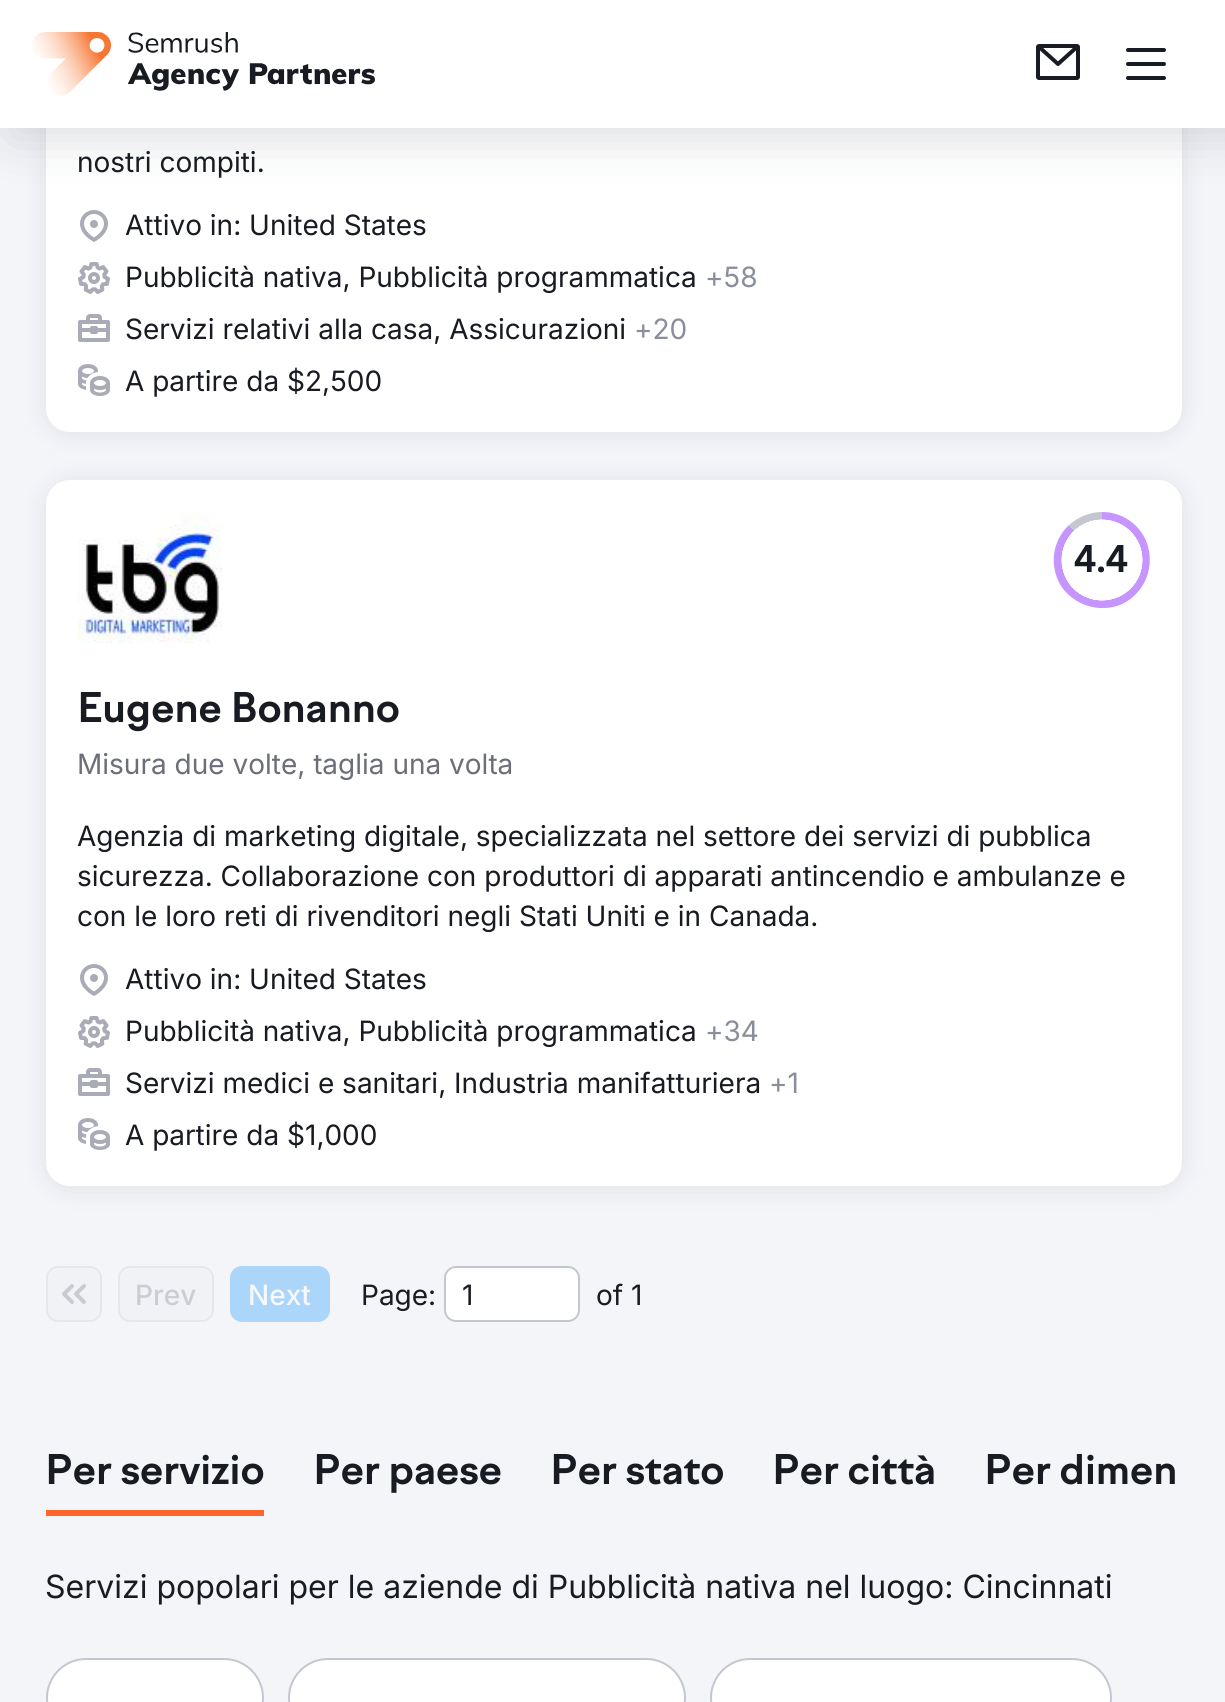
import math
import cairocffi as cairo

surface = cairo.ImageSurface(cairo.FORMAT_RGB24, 1225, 1702)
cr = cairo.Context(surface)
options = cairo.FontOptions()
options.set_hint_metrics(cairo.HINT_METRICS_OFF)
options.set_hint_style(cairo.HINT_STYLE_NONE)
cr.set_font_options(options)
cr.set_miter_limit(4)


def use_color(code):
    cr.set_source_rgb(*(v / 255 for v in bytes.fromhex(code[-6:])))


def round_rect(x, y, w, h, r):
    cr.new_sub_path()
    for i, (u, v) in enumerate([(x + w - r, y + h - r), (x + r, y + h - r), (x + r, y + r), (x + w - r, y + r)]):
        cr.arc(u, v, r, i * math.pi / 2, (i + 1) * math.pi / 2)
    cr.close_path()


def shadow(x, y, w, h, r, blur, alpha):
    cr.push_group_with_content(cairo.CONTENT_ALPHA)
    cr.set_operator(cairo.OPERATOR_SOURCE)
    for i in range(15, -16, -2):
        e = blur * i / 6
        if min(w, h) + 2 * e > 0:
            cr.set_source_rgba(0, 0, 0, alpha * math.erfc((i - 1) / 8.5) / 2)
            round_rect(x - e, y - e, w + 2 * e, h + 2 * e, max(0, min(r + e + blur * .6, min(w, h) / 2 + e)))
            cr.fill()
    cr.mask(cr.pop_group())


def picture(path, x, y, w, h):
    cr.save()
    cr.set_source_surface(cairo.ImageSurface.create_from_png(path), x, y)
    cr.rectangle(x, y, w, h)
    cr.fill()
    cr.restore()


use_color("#f4f5f9")
cr.paint()
use_color("#191b23")
shadow(46, -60, 1136, 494, 24, 12, 0.1)
use_color("#ffffff")
round_rect(46, -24, 1136, 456, 24)
cr.fill()
picture("img4.png", 80, 210, 28, 32)
use_color("#898d9a")
shadow(10, 10, 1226, 128, 0, 25, 0.3)
use_color("#ffffff")
cr.rectangle(0, 0, 1225, 128)
cr.fill()
picture("img1.png", 32, 32, 343, 64)
picture("img2.png", 1036, 44, 44, 36)
picture("img3.png", 1126, 48, 40, 32)
cr.select_font_face("Inter")
cr.set_font_size(28)
use_color("#191b23")
cr.move_to(77, 172)
cr.show_text("nostri compiti.")
cr.move_to(125, 235)
cr.show_text("Attivo in: United States")
picture("img5.png", 78, 262, 32, 32)
cr.move_to(125, 287)
cr.show_text("Pubblicità nativa, Pubblicità programmatica")
use_color("#8a8e9b")
cr.move_to(705, 287)
cr.show_text("+58")
picture("img6.png", 78, 314, 32, 28)
use_color("#191b23")
cr.move_to(125, 339)
cr.show_text("Servizi relativi alla casa, Assicurazioni")
use_color("#8a8e9b")
cr.move_to(634, 339)
cr.show_text("+20")
picture("img7.png", 78, 364, 32, 32)
use_color("#191b23")
cr.move_to(125, 391)
cr.show_text("A partire da $2,500")
use_color("#191b23")
shadow(46, 482, 1136, 706, 24, 12, 0.1)
use_color("#ffffff")
round_rect(46, 480, 1136, 706, 24)
cr.fill()
picture("img8.png", 78, 512, 144, 132)
use_color("#c695ff")
cr.new_path()
cr.move_to(1102, 560)
cr.line_to(1102, 512)
cr.curve_to(1125, 512, 1145, 528, 1149, 551)
cr.curve_to(1153, 574, 1141, 596, 1120, 605)
cr.curve_to(1098, 613, 1074, 605, 1061, 586)
cr.curve_to(1049, 566, 1052, 541, 1069, 525)
cr.close_path()
cr.fill()
use_color("#c4c7cf")
cr.new_path()
cr.move_to(1102, 560)
cr.line_to(1069, 525)
cr.curve_to(1078, 517, 1090, 512, 1102, 512)
cr.close_path()
cr.fill()
gradient = cairo.RadialGradient(1102, 560, 0, 1102, 560, 48)
gradient.add_color_stop_rgba(0.84, 1, 1, 1, 1)
gradient.add_color_stop_rgba(0.85, 1, 1, 1, 0)
gradient.add_color_stop_rgba(1, 0, 0, 0, 0)
cr.set_source(gradient)
cr.rectangle(1061, 519, 82, 82)
cr.fill()
cr.select_font_face("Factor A", cairo.FONT_SLANT_NORMAL, cairo.FONT_WEIGHT_BOLD)
cr.set_font_size(36)
use_color("#191b23")
cr.move_to(1074, 572)
cr.show_text("4.4")
cr.set_font_size(40)
cr.move_to(77, 722)
cr.show_text("Eugene Bonanno")
cr.select_font_face("Inter")
cr.set_font_size(28)
use_color("#6c6e79")
cr.move_to(77, 774)
cr.show_text("Misura due volte, taglia una volta")
use_color("#191b23")
cr.move_to(77, 846)
cr.show_text("Agenzia di marketing digitale, specializzata nel settore dei servizi di pubblica")
cr.move_to(77, 886)
cr.show_text("sicurezza. Collaborazione con produttori di apparati antincendio e ambulanze e")
cr.move_to(77, 926)
cr.show_text("con le loro reti di rivenditori negli Stati Uniti e in Canada.")
picture("img4.png", 80, 964, 28, 32)
cr.move_to(125, 989)
cr.show_text("Attivo in: United States")
picture("img5.png", 78, 1016, 32, 32)
cr.move_to(125, 1041)
cr.show_text("Pubblicità nativa, Pubblicità programmatica")
use_color("#8a8e9b")
cr.move_to(705, 1041)
cr.show_text("+34")
picture("img6.png", 78, 1068, 32, 28)
use_color("#191b23")
cr.move_to(125, 1093)
cr.show_text("Servizi medici e sanitari, Industria manifatturiera")
use_color("#8a8e9b")
cr.move_to(769, 1093)
cr.show_text("+1")
picture("img7.png", 78, 1118, 32, 32)
use_color("#191b23")
cr.move_to(125, 1145)
cr.show_text("A partire da $1,000")
use_color("#f1f2f6")
round_rect(47, 1267, 54, 54, 11)
cr.fill_preserve()
use_color("#e6e7ec")
cr.stroke()
picture("img9.png", 62, 1284, 24, 20)
use_color("#f1f2f6")
round_rect(119, 1267, 94, 54, 11)
cr.fill_preserve()
use_color("#e6e7ec")
cr.stroke()
cr.select_font_face("Inter Medium")
use_color("#cbcdd3")
cr.move_to(135, 1305)
cr.show_text("Prev")
use_color("#abd6f9")
round_rect(230, 1266, 100, 56, 12)
cr.fill()
use_color("#f7f8fb")
cr.move_to(248, 1305)
cr.show_text("Next")
cr.select_font_face("Inter")
use_color("#191b23")
cr.move_to(361, 1305)
cr.show_text("Page:")
use_color("#ffffff")
round_rect(445, 1267, 134, 54, 11)
cr.fill_preserve()
use_color("#c4c7cf")
cr.stroke()
use_color("#191b23")
cr.move_to(462, 1305)
cr.show_text("1")
cr.move_to(596, 1305)
cr.show_text("of 1")
cr.select_font_face("Factor A", cairo.FONT_SLANT_NORMAL, cairo.FONT_WEIGHT_BOLD)
cr.set_font_size(40)
cr.move_to(45, 1484)
cr.show_text("Per servizio")
use_color("#ff642d")
cr.rectangle(46, 1510, 218, 6)
cr.fill()
use_color("#191b23")
cr.move_to(313, 1484)
cr.show_text("Per paese")
cr.move_to(550, 1484)
cr.show_text("Per stato")
cr.move_to(772, 1484)
cr.show_text("Per città")
cr.move_to(984, 1484)
cr.show_text("Per dimen")
cr.select_font_face("Inter")
cr.set_font_size(32)
cr.move_to(45, 1598)
cr.show_text("Servizi popolari per le aziende di Pubblicità nativa nel luogo: Cincinnati")
use_color("#ffffff")
round_rect(47, 1659, 216, 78, 39)
cr.fill_preserve()
use_color("#c4c7cf")
cr.stroke()
use_color("#ffffff")
round_rect(289, 1659, 396, 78, 39)
cr.fill_preserve()
use_color("#c4c7cf")
cr.stroke()
use_color("#ffffff")
round_rect(711, 1659, 400, 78, 39)
cr.fill_preserve()
use_color("#c4c7cf")
cr.stroke()
surface.write_to_png("result.png")
